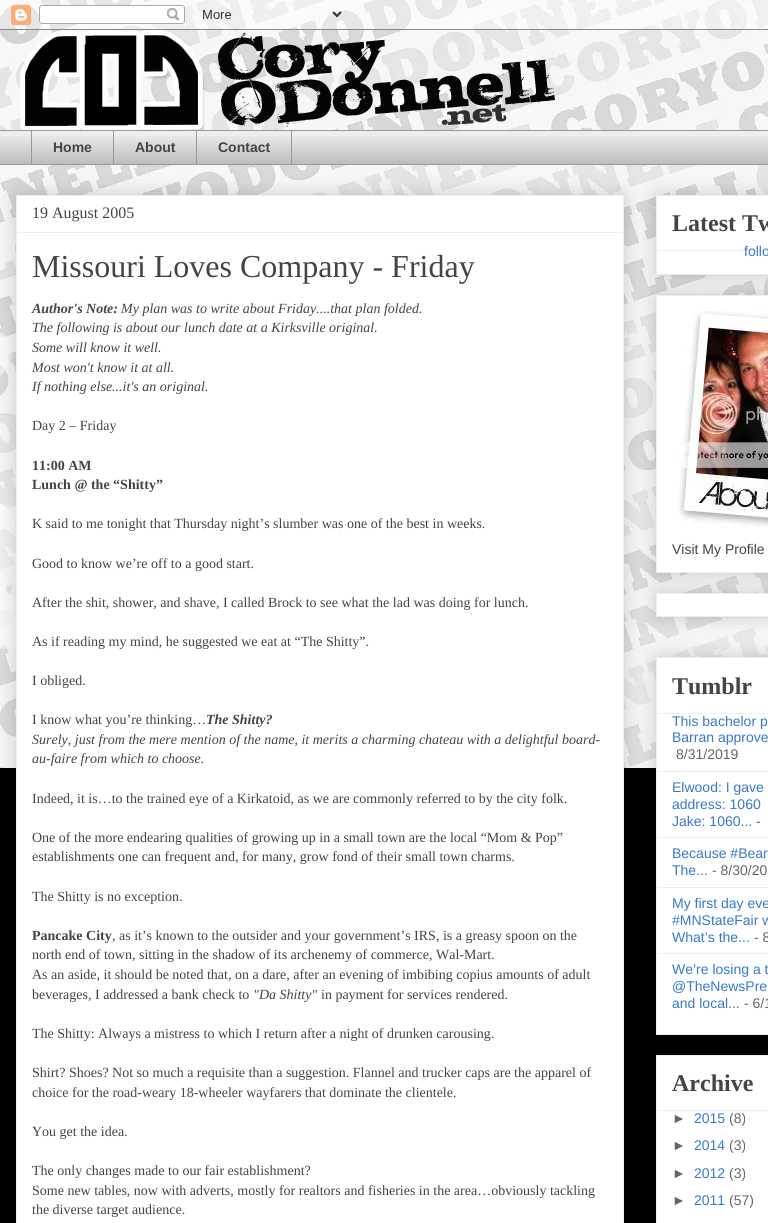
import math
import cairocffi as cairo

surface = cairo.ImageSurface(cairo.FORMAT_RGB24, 768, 1223)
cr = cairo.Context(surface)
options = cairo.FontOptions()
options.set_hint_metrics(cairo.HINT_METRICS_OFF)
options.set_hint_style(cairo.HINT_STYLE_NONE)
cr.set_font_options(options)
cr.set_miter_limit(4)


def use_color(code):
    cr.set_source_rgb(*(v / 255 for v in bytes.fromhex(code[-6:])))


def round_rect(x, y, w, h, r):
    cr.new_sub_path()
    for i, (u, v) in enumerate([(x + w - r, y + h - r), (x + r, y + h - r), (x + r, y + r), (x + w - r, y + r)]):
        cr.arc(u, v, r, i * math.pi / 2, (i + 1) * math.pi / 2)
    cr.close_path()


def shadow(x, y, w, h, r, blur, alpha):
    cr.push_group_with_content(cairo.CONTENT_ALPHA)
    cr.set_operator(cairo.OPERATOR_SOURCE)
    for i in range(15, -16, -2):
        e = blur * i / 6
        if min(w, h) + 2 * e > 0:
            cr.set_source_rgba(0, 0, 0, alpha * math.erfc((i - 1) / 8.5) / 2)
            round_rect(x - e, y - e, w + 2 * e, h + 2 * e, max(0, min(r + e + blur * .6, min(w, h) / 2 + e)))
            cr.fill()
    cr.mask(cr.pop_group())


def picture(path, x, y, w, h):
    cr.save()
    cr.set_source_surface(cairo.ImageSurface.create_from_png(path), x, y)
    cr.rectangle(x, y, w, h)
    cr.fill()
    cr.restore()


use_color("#000000")
cr.paint()
picture("img1.png", 0, 0, 768, 768)
picture("img2.png", 0, 0, 768, 30)
picture("img3.png", 20, 30, 537, 100)
use_color("#eeeeee")
cr.rectangle(0, 131, 768, 33)
cr.fill()
picture("img4.png", 0, 136, 768, 28)
use_color("#999999")
cr.rectangle(0, 130, 768, 1)
cr.fill()
cr.rectangle(31, 130, 1, 35)
cr.fill()
cr.select_font_face("Liberation Sans", cairo.FONT_SLANT_NORMAL, cairo.FONT_WEIGHT_BOLD)
cr.set_font_size(14)
use_color("#444444")
cr.move_to(53, 152)
cr.show_text("Home")
use_color("#999999")
cr.rectangle(113, 130, 1, 35)
cr.fill()
use_color("#444444")
cr.move_to(135, 152)
cr.show_text("About")
cr.rectangle(196.5, 130.5, 95, 34)
use_color("#999999")
cr.set_line_width(1)
cr.stroke()
use_color("#444444")
cr.move_to(218, 152)
cr.show_text("Contact")
use_color("#999999")
cr.rectangle(0, 164, 768, 1)
cr.fill()
use_color("#000000")
shadow(16, 195, 608, 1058, 0, 10, 0.2)
use_color("#ffffff")
cr.rectangle(16.5, 195.5, 607, 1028)
cr.fill_preserve()
use_color("#eeeeee")
cr.stroke()
cr.select_font_face("Liberation Serif")
cr.set_font_size(16)
use_color("#444444")
cr.move_to(32, 218)
cr.show_text("19 August 2005")
use_color("#eeeeee")
cr.rectangle(17, 232, 606, 1)
cr.fill()
cr.set_font_size(32)
use_color("#444444")
cr.move_to(32, 277)
cr.show_text("Missouri Loves Company - Friday")
cr.select_font_face("Liberation Serif", cairo.FONT_SLANT_ITALIC, cairo.FONT_WEIGHT_BOLD)
cr.set_font_size(14)
cr.move_to(32, 313)
cr.show_text("Author's Note:")
cr.select_font_face("Liberation Serif", cairo.FONT_SLANT_ITALIC)
cr.move_to(121, 313)
cr.show_text("My plan was to write about Friday....that plan folded.")
cr.move_to(32, 332)
cr.show_text("The following is about our lunch date at a Kirksville original.")
cr.move_to(32, 352)
cr.show_text("Some will know it well.")
cr.move_to(32, 372)
cr.show_text("Most won't know it at all.")
cr.move_to(32, 391)
cr.show_text("If nothing else...it's an original.")
cr.select_font_face("Liberation Serif")
cr.move_to(32, 430)
cr.show_text("Day 2 – Friday")
cr.select_font_face("Liberation Serif", cairo.FONT_SLANT_NORMAL, cairo.FONT_WEIGHT_BOLD)
cr.move_to(32, 470)
cr.show_text("11:00 AM")
cr.move_to(32, 489)
cr.show_text("Lunch @ the “Shitty”")
cr.select_font_face("Liberation Serif")
cr.move_to(32, 528)
cr.show_text("K said to me tonight that Thursday night’s slumber was one of the best in weeks.")
cr.move_to(32, 568)
cr.show_text("Good to know we’re off to a good start.")
cr.move_to(32, 607)
cr.show_text("After the shit, shower, and shave, I called Brock to see what the lad was doing for lunch.")
cr.move_to(32, 646)
cr.show_text("As if reading my mind, he suggested we eat at “The Shitty”.")
cr.move_to(32, 685)
cr.show_text("I obliged.")
cr.move_to(32, 724)
cr.show_text("I know what you’re thinking…")
cr.select_font_face("Liberation Serif", cairo.FONT_SLANT_ITALIC, cairo.FONT_WEIGHT_BOLD)
cr.move_to(206, 724)
cr.show_text("The Shitty?")
cr.select_font_face("Liberation Serif", cairo.FONT_SLANT_ITALIC)
cr.move_to(32, 744)
cr.show_text("Surely, just from the mere mention of the name, it merits a charming chateau with a delightful board-")
cr.move_to(32, 763)
cr.show_text("au-faire from which to choose.")
cr.select_font_face("Liberation Serif")
cr.move_to(32, 803)
cr.show_text("Indeed, it is…to the trained eye of a Kirkatoid, as we are commonly referred to by the city folk.")
cr.move_to(32, 842)
cr.show_text("One of the more endearing qualities of growing up in a small town are the local “Mom & Pop”")
cr.move_to(32, 861)
cr.show_text("establishments one can frequent and, for many, grow fond of their small town charms.")
cr.move_to(32, 901)
cr.show_text("The Shitty is no exception.")
cr.select_font_face("Liberation Serif", cairo.FONT_SLANT_NORMAL, cairo.FONT_WEIGHT_BOLD)
cr.move_to(32, 940)
cr.show_text("Pancake City")
cr.select_font_face("Liberation Serif")
cr.move_to(112, 940)
cr.show_text(", as it’s known to the outsider and your government’s IRS, is a greasy spoon on the")
cr.move_to(32, 959)
cr.show_text("north end of town, sitting in the shadow of its archenemy of commerce, Wal-Mart.")
cr.move_to(32, 979)
cr.show_text("As an aside, it should be noted that, on a dare, after an evening of imbibing copius amounts of adult")
cr.move_to(32, 999)
cr.show_text("beverages, I addressed a bank check to")
cr.select_font_face("Liberation Serif", cairo.FONT_SLANT_ITALIC)
cr.move_to(253, 999)
cr.show_text("\"Da Shitty\"")
cr.select_font_face("Liberation Serif")
cr.move_to(321, 999)
cr.show_text("in payment for services rendered.")
cr.move_to(32, 1038)
cr.show_text("The Shitty: Always a mistress to which I return after a night of drunken carousing.")
cr.move_to(32, 1077)
cr.show_text("Shirt? Shoes? Not so much a requisite than a suggestion. Flannel and trucker caps are the apparel of")
cr.move_to(32, 1097)
cr.show_text("choice for the road-weary 18-wheeler wayfarers that dominate the clientele.")
cr.move_to(32, 1136)
cr.show_text("You get the idea.")
cr.move_to(32, 1175)
cr.show_text("The only changes made to our fair establishment?")
cr.move_to(32, 1195)
cr.show_text("Some new tables, now with adverts, mostly for realtors and fisheries in the area…obviously tackling")
cr.move_to(32, 1214)
cr.show_text("the diverse target audience.")
use_color("#000000")
shadow(656, 195, 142, 80, 0, 10, 0.2)
use_color("#ffffff")
cr.rectangle(656.5, 195.5, 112, 79)
cr.fill_preserve()
use_color("#eeeeee")
cr.stroke()
cr.select_font_face("Liberation Serif", cairo.FONT_SLANT_NORMAL, cairo.FONT_WEIGHT_BOLD)
cr.set_font_size(24)
use_color("#444444")
cr.move_to(672, 231)
cr.show_text("Latest Tw")
use_color("#eeeeee")
cr.rectangle(657, 250, 111, 1)
cr.fill()
cr.select_font_face("Liberation Sans")
cr.set_font_size(14)
use_color("#3778cd")
cr.move_to(744, 256)
cr.show_text("follo")
use_color("#000000")
shadow(656, 295, 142, 278, 0, 10, 0.2)
use_color("#ffffff")
cr.rectangle(656.5, 295.5, 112, 277)
cr.fill_preserve()
use_color("#eeeeee")
cr.stroke()
picture("img5.png", 678, 311, 90, 216)
use_color("#444444")
cr.move_to(672, 554)
cr.show_text("Visit My Profile")
use_color("#000000")
shadow(656, 593, 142, 24, 0, 10, 0.2)
use_color("#ffffff")
cr.rectangle(656.5, 593.5, 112, 23)
cr.fill_preserve()
use_color("#eeeeee")
cr.stroke()
use_color("#000000")
shadow(656, 657, 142, 378, 0, 10, 0.2)
use_color("#ffffff")
cr.rectangle(656.5, 657.5, 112, 377)
cr.fill_preserve()
use_color("#eeeeee")
cr.stroke()
cr.select_font_face("Liberation Serif", cairo.FONT_SLANT_NORMAL, cairo.FONT_WEIGHT_BOLD)
cr.set_font_size(24)
use_color("#444444")
cr.move_to(672, 694)
cr.show_text("Tumblr")
use_color("#eeeeee")
cr.rectangle(657, 713, 111, 1)
cr.fill()
cr.select_font_face("Liberation Sans")
cr.set_font_size(14)
use_color("#3778cd")
cr.move_to(672, 726)
cr.show_text("This bachelor p")
cr.move_to(672, 742)
cr.show_text("Barran approve")
use_color("#666666")
cr.move_to(676, 759)
cr.show_text("8/31/2019")
use_color("#eeeeee")
cr.rectangle(657, 771, 111, 1)
cr.fill()
use_color("#3778cd")
cr.move_to(672, 792)
cr.show_text("Elwood: I gave")
cr.move_to(672, 809)
cr.show_text("address: 1060")
cr.move_to(672, 826)
cr.show_text("Jake: 1060...")
use_color("#666666")
cr.move_to(756, 826)
cr.show_text("-")
use_color("#eeeeee")
cr.rectangle(657, 837, 111, 1)
cr.fill()
use_color("#3778cd")
cr.move_to(672, 858)
cr.show_text("Because #Bean")
cr.move_to(672, 875)
cr.show_text("The...")
use_color("#666666")
cr.move_to(712, 875)
cr.show_text("- 8/30/20")
use_color("#eeeeee")
cr.rectangle(657, 887, 111, 1)
cr.fill()
use_color("#3778cd")
cr.move_to(672, 908)
cr.show_text("My first day eve")
cr.move_to(672, 925)
cr.show_text("#MNStateFair w")
cr.move_to(672, 942)
cr.show_text("What’s the...")
use_color("#666666")
cr.move_to(754, 942)
cr.show_text("- 8")
use_color("#eeeeee")
cr.rectangle(657, 953, 111, 1)
cr.fill()
use_color("#3778cd")
cr.move_to(672, 974)
cr.show_text("We’re losing a t")
cr.move_to(672, 991)
cr.show_text("@TheNewsPre")
cr.move_to(672, 1008)
cr.show_text("and local...")
use_color("#666666")
cr.move_to(744, 1008)
cr.show_text("- 6/1")
use_color("#ffffff")
cr.rectangle(656.5, 1055.5, 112, 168)
cr.fill_preserve()
use_color("#eeeeee")
cr.stroke()
cr.select_font_face("Liberation Serif", cairo.FONT_SLANT_NORMAL, cairo.FONT_WEIGHT_BOLD)
cr.set_font_size(24)
use_color("#444444")
cr.move_to(672, 1091)
cr.show_text("Archive")
use_color("#eeeeee")
cr.rectangle(657, 1110, 111, 1)
cr.fill()
cr.select_font_face("Liberation Sans")
cr.set_font_size(14)
use_color("#666666")
cr.move_to(672, 1123)
cr.show_text("►")
use_color("#3778cd")
cr.move_to(694, 1123)
cr.show_text("2015")
use_color("#666666")
cr.move_to(729, 1123)
cr.show_text("(8)")
cr.move_to(672, 1150)
cr.show_text("►")
use_color("#3778cd")
cr.move_to(694, 1150)
cr.show_text("2014")
use_color("#666666")
cr.move_to(729, 1150)
cr.show_text("(3)")
cr.move_to(672, 1178)
cr.show_text("►")
use_color("#3778cd")
cr.move_to(694, 1178)
cr.show_text("2012")
use_color("#666666")
cr.move_to(729, 1178)
cr.show_text("(3)")
cr.move_to(672, 1205)
cr.show_text("►")
use_color("#3778cd")
cr.move_to(694, 1205)
cr.show_text("2011")
use_color("#666666")
cr.move_to(729, 1205)
cr.show_text("(57)")
surface.write_to_png("result.png")
